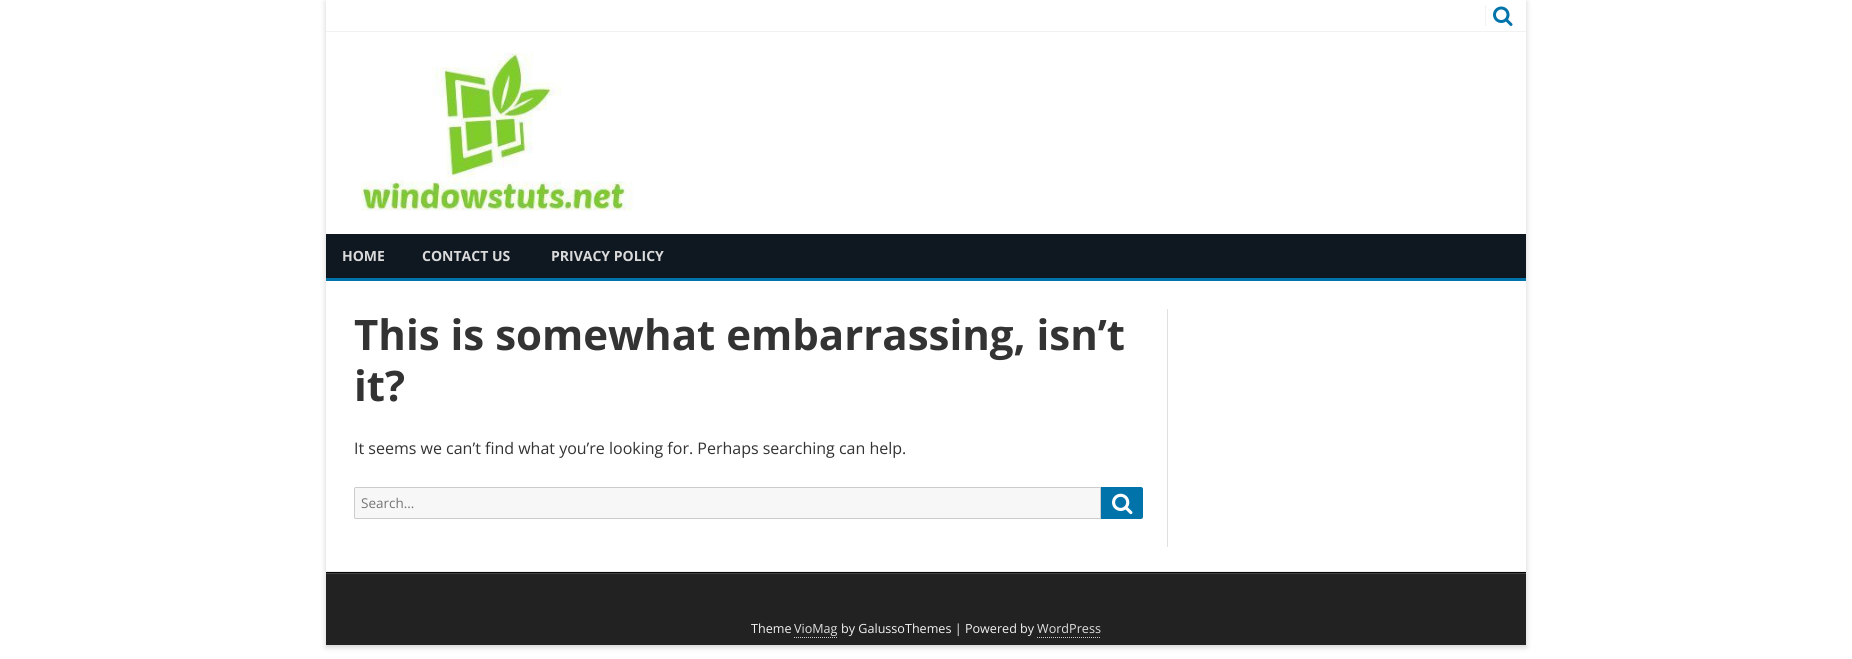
import math
import cairocffi as cairo

surface = cairo.ImageSurface(cairo.FORMAT_RGB24, 1852, 659)
cr = cairo.Context(surface)
options = cairo.FontOptions()
options.set_hint_metrics(cairo.HINT_METRICS_OFF)
options.set_hint_style(cairo.HINT_STYLE_NONE)
cr.set_font_options(options)
cr.set_miter_limit(4)


def use_color(code):
    cr.set_source_rgb(*(v / 255 for v in bytes.fromhex(code[-6:])))


def round_rect(x, y, w, h, r):
    cr.new_sub_path()
    for i, (u, v) in enumerate([(x + w - r, y + h - r), (x + r, y + h - r), (x + r, y + r), (x + w - r, y + r)]):
        cr.arc(u, v, r, i * math.pi / 2, (i + 1) * math.pi / 2)
    cr.close_path()


def shadow(x, y, w, h, r, blur, alpha):
    cr.push_group_with_content(cairo.CONTENT_ALPHA)
    cr.set_operator(cairo.OPERATOR_SOURCE)
    for i in range(15, -16, -2):
        e = blur * i / 6
        if min(w, h) + 2 * e > 0:
            cr.set_source_rgba(0, 0, 0, alpha * math.erfc((i - 1) / 8.5) / 2)
            round_rect(x - e, y - e, w + 2 * e, h + 2 * e, max(0, min(r + e + blur * .6, min(w, h) / 2 + e)))
            cr.fill()
    cr.mask(cr.pop_group())


def picture(path, x, y, w, h):
    cr.save()
    cr.set_source_surface(cairo.ImageSurface.create_from_png(path), x, y)
    cr.rectangle(x, y, w, h)
    cr.fill()
    cr.restore()


use_color("#ffffff")
cr.paint()
cr.save()
cr.set_fill_rule(cairo.FILL_RULE_EVEN_ODD)
cr.new_path()
cr.move_to(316, 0)
cr.line_to(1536, 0)
cr.line_to(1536, 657)
cr.line_to(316, 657)
cr.close_path()
cr.move_to(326, 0)
cr.line_to(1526, 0)
cr.line_to(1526, 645)
cr.line_to(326, 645)
cr.close_path()
cr.clip()
use_color("#646464")
shadow(326, 2, 1200, 645, 0, 3, 0.3)
cr.restore()
use_color("#f2f2f2")
cr.rectangle(326, 31, 1200, 1)
cr.fill()
cr.rectangle(1485, 5, 1, 21)
cr.fill()
picture("img1.png", 1493, 6, 20, 20)
picture("img2.png", 360, 53, 273, 158)
use_color("#0f1721")
cr.rectangle(326, 234, 1200, 44)
cr.fill()
use_color("#0073aa")
cr.rectangle(326, 278, 1200, 3)
cr.fill()
cr.select_font_face("Open Sans", cairo.FONT_SLANT_NORMAL, cairo.FONT_WEIGHT_BOLD)
cr.set_font_size(14)
use_color("#dadada")
cr.move_to(342, 261)
cr.show_text("HOME")
cr.move_to(422, 261)
cr.show_text("CONTACT US")
cr.move_to(551, 261)
cr.show_text("PRIVACY POLICY")
use_color("#e0e0e0")
cr.rectangle(1167, 309, 1, 238)
cr.fill()
cr.set_font_size(42)
use_color("#333333")
cr.move_to(354, 350)
cr.show_text("This is somewhat embarrassing, isn’t")
cr.move_to(354, 401)
cr.show_text("it?")
cr.select_font_face("Open Sans")
cr.set_font_size(16)
cr.move_to(354, 454)
cr.show_text("It seems we can’t find what you’re looking for. Perhaps searching can help.")
use_color("#f7f7f7")
cr.new_path()
cr.move_to(356, 487.5)
cr.line_to(1100.5, 487.5)
cr.line_to(1100.5, 518.5)
cr.line_to(356, 518.5)
cr.curve_to(355, 518.5, 354.5, 518, 354.5, 517)
cr.line_to(354.5, 489)
cr.curve_to(354.5, 488, 355, 487.5, 356, 487.5)
cr.close_path()
cr.fill_preserve()
use_color("#cccccc")
cr.set_line_width(1)
cr.stroke()
cr.set_font_size(13.5)
use_color("#757575")
cr.move_to(361, 508)
cr.show_text("Search...")
use_color("#0073aa")
cr.new_path()
cr.move_to(1101, 487)
cr.line_to(1141, 487)
cr.curve_to(1142, 487, 1143, 488, 1143, 489)
cr.line_to(1143, 517)
cr.curve_to(1143, 518, 1142, 519, 1141, 519)
cr.line_to(1101, 519)
cr.close_path()
cr.fill()
picture("img3.png", 1112, 493, 21, 22)
use_color("#222222")
cr.rectangle(326, 574, 1200, 71)
cr.fill()
use_color("#ededed")
cr.rectangle(326, 571, 1200, 1)
cr.fill()
use_color("#040404")
cr.rectangle(326, 572, 1200, 1)
cr.fill()
use_color("#444444")
cr.rectangle(326, 573, 1200, 1)
cr.fill()
cr.set_font_size(12.6)
use_color("#f2f2f2")
cr.move_to(751, 633)
cr.show_text("Theme")
use_color("#e0e0e0")
cr.move_to(794, 633)
cr.show_text("VioMag")
cr.new_path()
cr.move_to(794, 637.5)
cr.line_to(838, 637.5)
use_color("#cdcdcd")
cr.set_dash([1, 1])
cr.stroke()
use_color("#f2f2f2")
cr.move_to(841, 633)
cr.show_text("by GalussoThemes | Powered by")
use_color("#e0e0e0")
cr.move_to(1037, 633)
cr.show_text("WordPress")
cr.new_path()
cr.move_to(1037, 637.5)
cr.line_to(1101, 637.5)
use_color("#cdcdcd")
cr.stroke()
surface.write_to_png("result.png")
